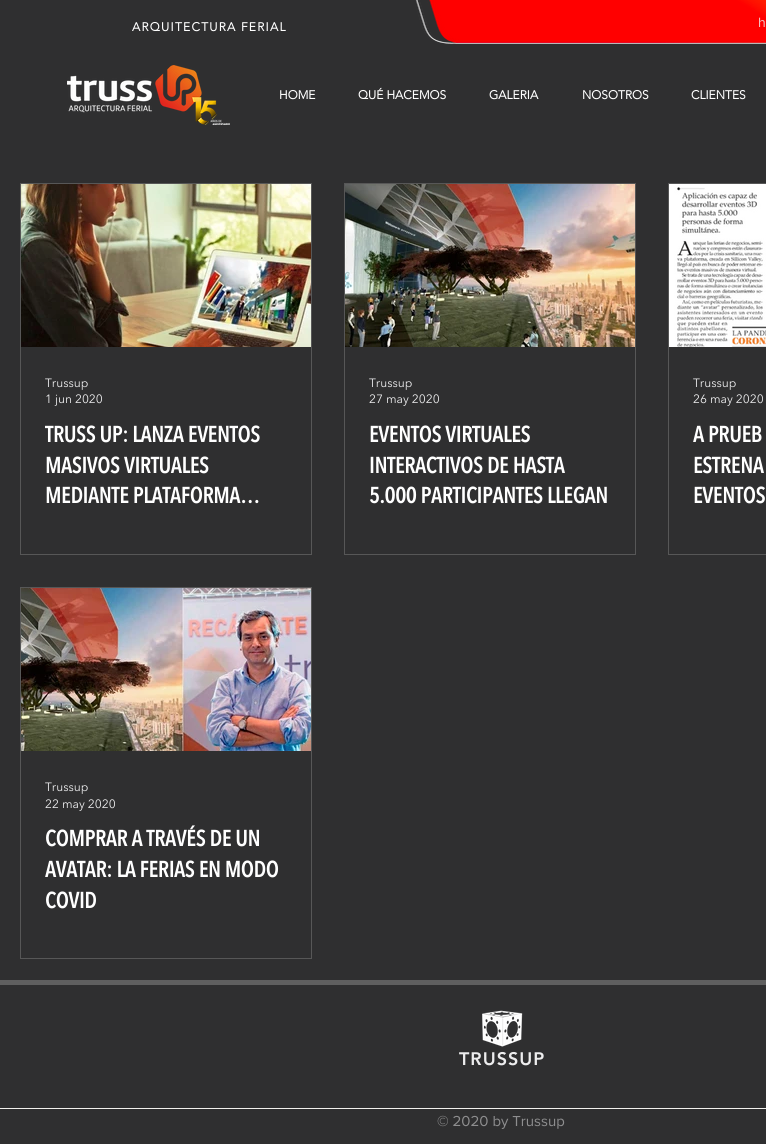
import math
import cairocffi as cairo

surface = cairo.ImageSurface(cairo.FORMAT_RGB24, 766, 1144)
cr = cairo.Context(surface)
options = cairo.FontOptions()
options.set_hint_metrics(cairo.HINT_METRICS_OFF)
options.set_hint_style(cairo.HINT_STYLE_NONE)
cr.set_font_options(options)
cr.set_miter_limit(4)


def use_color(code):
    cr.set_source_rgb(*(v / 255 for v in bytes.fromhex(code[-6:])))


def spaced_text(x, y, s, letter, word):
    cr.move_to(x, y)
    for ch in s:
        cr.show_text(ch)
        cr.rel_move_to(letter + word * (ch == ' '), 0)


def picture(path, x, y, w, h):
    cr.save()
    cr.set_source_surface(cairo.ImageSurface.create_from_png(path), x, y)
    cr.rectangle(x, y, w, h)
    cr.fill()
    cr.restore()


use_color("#2f2f30")
cr.paint()
picture("img1.png", 415, 0, 351, 44)
cr.select_font_face("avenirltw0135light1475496", cairo.FONT_SLANT_NORMAL, cairo.FONT_WEIGHT_BOLD)
cr.set_font_size(12)
use_color("#ffffff")
spaced_text(132, 31, "ARQUITECTURA FERIAL", 1.25, 0)
cr.select_font_face("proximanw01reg")
cr.set_font_size(14)
use_color("#f2c7c7")
cr.move_to(758, 27)
cr.show_text("h")
picture("img2.png", 67, 65, 163, 60)
cr.select_font_face("avenirltw0135light1475496", cairo.FONT_SLANT_NORMAL, cairo.FONT_WEIGHT_BOLD)
cr.set_font_size(12)
use_color("#ffffff")
cr.move_to(279, 99)
cr.show_text("HOME")
cr.move_to(358, 99)
cr.show_text("QUÉ HACEMOS")
cr.move_to(489, 99)
cr.show_text("GALERIA")
cr.move_to(582, 99)
cr.show_text("NOSOTROS")
cr.move_to(691, 99)
cr.show_text("CLIENTES")
cr.rectangle(20.5, 183.5, 291, 371)
use_color("#575757")
cr.set_line_width(1)
cr.stroke()
picture("img3.png", 21, 184, 290, 163)
cr.select_font_face("Avenir Next")
use_color("#ededee")
cr.move_to(45, 387)
cr.show_text("Trussup")
cr.move_to(45, 403)
cr.show_text("1 jun 2020")
cr.select_font_face("Avenir Next", cairo.FONT_SLANT_NORMAL, cairo.FONT_WEIGHT_BOLD)
cr.set_font_size(22)
use_color("#ffffff")
cr.move_to(45, 442)
cr.show_text("TRUSS UP: LANZA EVENTOS")
cr.move_to(45, 473)
cr.show_text("MASIVOS VIRTUALES")
cr.move_to(45, 503)
cr.show_text("MEDIANTE PLATAFORMA…")
cr.rectangle(344.5, 183.5, 291, 371)
use_color("#575757")
cr.stroke()
picture("img4.png", 345, 184, 290, 163)
cr.select_font_face("Avenir Next")
cr.set_font_size(12)
use_color("#ededee")
cr.move_to(369, 387)
cr.show_text("Trussup")
cr.move_to(369, 403)
cr.show_text("27 may 2020")
cr.select_font_face("Avenir Next", cairo.FONT_SLANT_NORMAL, cairo.FONT_WEIGHT_BOLD)
cr.set_font_size(22)
use_color("#ffffff")
cr.move_to(369, 442)
cr.show_text("EVENTOS VIRTUALES")
cr.move_to(369, 473)
cr.show_text("INTERACTIVOS DE HASTA")
cr.move_to(369, 503)
cr.show_text("5.000 PARTICIPANTES LLEGAN")
cr.rectangle(668.5, 183.5, 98, 371)
use_color("#575757")
cr.stroke()
picture("img5.png", 669, 184, 97, 163)
cr.select_font_face("Avenir Next")
cr.set_font_size(12)
use_color("#ededee")
cr.move_to(693, 387)
cr.show_text("Trussup")
cr.move_to(693, 403)
cr.show_text("26 may 2020")
cr.select_font_face("Avenir Next", cairo.FONT_SLANT_NORMAL, cairo.FONT_WEIGHT_BOLD)
cr.set_font_size(22)
use_color("#ffffff")
cr.move_to(693, 442)
cr.show_text("A PRUEB")
cr.move_to(693, 473)
cr.show_text("ESTRENA")
cr.move_to(693, 503)
cr.show_text("EVENTOS")
cr.rectangle(20.5, 587.5, 291, 371)
use_color("#575757")
cr.stroke()
picture("img6.png", 21, 588, 290, 163)
cr.select_font_face("Avenir Next")
cr.set_font_size(12)
use_color("#ededee")
cr.move_to(45, 791)
cr.show_text("Trussup")
cr.move_to(45, 808)
cr.show_text("22 may 2020")
cr.select_font_face("Avenir Next", cairo.FONT_SLANT_NORMAL, cairo.FONT_WEIGHT_BOLD)
cr.set_font_size(22)
use_color("#ffffff")
cr.move_to(45, 846)
cr.show_text("COMPRAR A TRAVÉS DE UN")
cr.move_to(45, 877)
cr.show_text("AVATAR: LA FERIAS EN MODO")
cr.move_to(45, 908)
cr.show_text("COVID")
use_color("#5f5f5f")
cr.rectangle(0, 980, 766, 5)
cr.fill()
picture("img7.png", 482, 1010, 41, 37)
cr.select_font_face("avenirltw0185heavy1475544 Black")
cr.set_font_size(18)
use_color("#ededee")
spaced_text(459, 1065, "TRUSSUP", 1, 0)
use_color("#f1f0ec")
cr.rectangle(0, 1108, 766, 1)
cr.fill()
cr.select_font_face("proximanw01reg")
cr.set_font_size(15)
use_color("#8e8e8f")
cr.move_to(437, 1126)
cr.show_text("© 2020 by Trussup")
surface.write_to_png("result.png")
